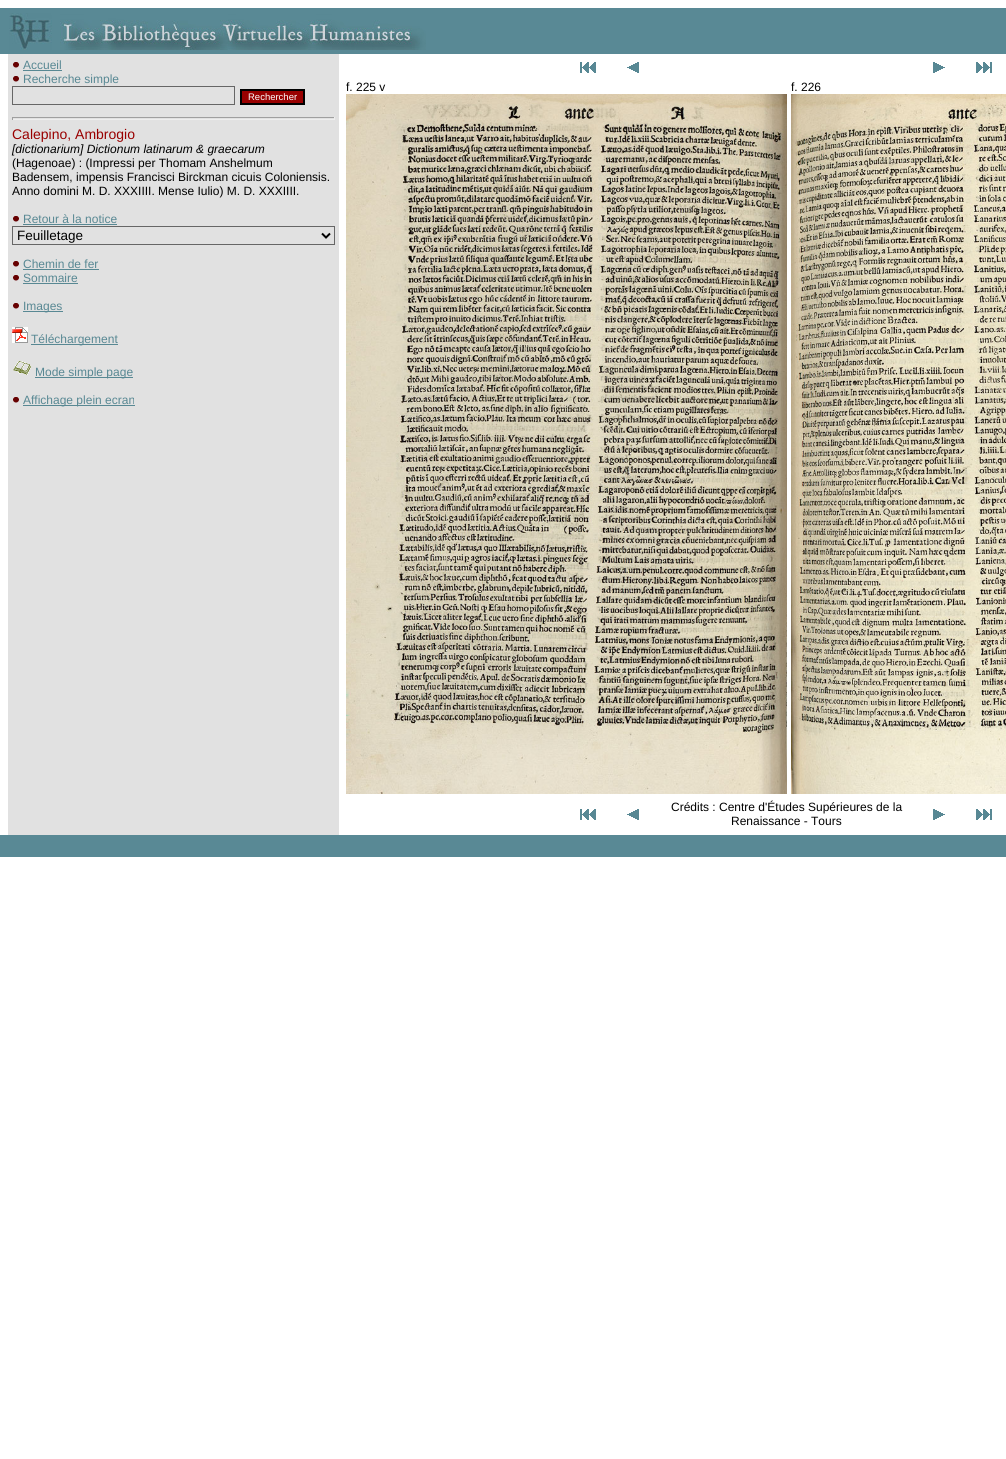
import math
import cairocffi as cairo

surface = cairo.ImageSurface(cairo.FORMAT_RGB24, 1006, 1459)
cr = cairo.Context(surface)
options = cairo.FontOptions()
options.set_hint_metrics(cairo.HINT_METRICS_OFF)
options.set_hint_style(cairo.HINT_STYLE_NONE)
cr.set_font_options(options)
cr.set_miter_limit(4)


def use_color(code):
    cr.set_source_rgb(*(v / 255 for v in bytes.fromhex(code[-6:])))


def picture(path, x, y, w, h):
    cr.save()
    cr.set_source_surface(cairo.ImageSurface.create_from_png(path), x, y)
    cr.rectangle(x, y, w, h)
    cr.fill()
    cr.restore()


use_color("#ffffff")
cr.paint()
use_color("#598995")
cr.rectangle(0, 8, 1006, 46)
cr.fill()
picture("img1.png", 9, 13, 417, 37)
use_color("#e1e1e1")
cr.rectangle(8, 54, 331, 781)
cr.fill()
picture("img2.png", 13, 62, 7, 7)
cr.select_font_face("Liberation Sans")
cr.set_font_size(12)
use_color("#588893")
cr.move_to(23, 69)
cr.show_text("Accueil")
cr.rectangle(23, 70, 39, 1)
cr.fill()
picture("img2.png", 13, 76, 7, 7)
cr.move_to(23, 83)
cr.show_text("Recherche simple")
cr.rectangle(12.5, 86.5, 222, 18)
use_color("#666666")
cr.set_line_width(1)
cr.stroke()
use_color("#990000")
cr.rectangle(241, 90, 63, 14)
cr.fill_preserve()
use_color("#000000")
cr.set_line_width(2)
cr.stroke()
cr.set_font_size(9.5)
use_color("#ffffff")
cr.move_to(248, 100)
cr.show_text("Rechercher")
use_color("#9f9f9f")
cr.rectangle(12, 117, 323, 1)
cr.fill()
use_color("#eeeeee")
cr.rectangle(334, 117, 1, 3)
cr.fill()
cr.rectangle(12, 119, 323, 1)
cr.fill()
use_color("#9f9f9f")
cr.rectangle(12, 117, 1, 3)
cr.fill()
cr.set_font_size(14)
use_color("#990000")
cr.move_to(12, 139)
cr.show_text("Calepino, Ambrogio")
cr.select_font_face("Liberation Sans", cairo.FONT_SLANT_ITALIC)
cr.set_font_size(12)
use_color("#000000")
cr.move_to(12, 153)
cr.show_text("[dictionarium] Dictionum latinarum & graecarum")
cr.select_font_face("Liberation Sans")
cr.move_to(12, 167)
cr.show_text("(Hagenoae) : (Impressi per Thomam Anshelmum")
cr.move_to(12, 181)
cr.show_text("Badensem, impensis Francisci Birckman cicuis Coloniensis.")
cr.move_to(12, 195)
cr.show_text("Anno domini M. D. XXXIIII. Mense Iulio) M. D. XXXIIII.")
picture("img2.png", 13, 216, 7, 7)
use_color("#588893")
cr.move_to(23, 223)
cr.show_text("Retour à la notice")
cr.rectangle(23, 224, 94, 1)
cr.fill()
cr.rectangle(12.5, 226.5, 322, 18)
use_color("#666666")
cr.set_line_width(1)
cr.stroke()
cr.new_path()
cr.move_to(322, 233.5)
cr.line_to(326, 237.5)
cr.line_to(330, 233.5)
use_color("#000000")
cr.set_line_width(2)
cr.stroke()
cr.set_font_size(13.5)
cr.move_to(17, 240)
cr.show_text("Feuilletage")
picture("img2.png", 13, 261, 7, 7)
cr.set_font_size(12)
use_color("#588893")
cr.move_to(23, 268)
cr.show_text("Chemin de fer")
cr.rectangle(23, 269, 76, 1)
cr.fill()
picture("img2.png", 13, 275, 7, 7)
cr.move_to(23, 282)
cr.show_text("Sommaire")
cr.rectangle(23, 283, 55, 1)
cr.fill()
picture("img2.png", 13, 303, 7, 7)
cr.rectangle(23, 311, 40, 1)
cr.fill()
cr.move_to(23, 310)
cr.show_text("Images")
picture("img3.png", 12, 327, 16, 16)
cr.rectangle(31, 344, 87, 1)
cr.fill()
cr.move_to(31, 343)
cr.show_text("Téléchargement")
picture("img4.png", 13, 361, 18, 14)
cr.rectangle(35, 377, 98, 1)
cr.fill()
cr.move_to(35, 376)
cr.show_text("Mode simple page")
picture("img2.png", 13, 397, 7, 7)
cr.rectangle(23, 405, 112, 1)
cr.fill()
cr.move_to(23, 404)
cr.show_text("Affichage plein ecran")
picture("img5.png", 580, 62, 16, 11)
picture("img6.png", 627, 62, 12, 11)
picture("img7.png", 933, 62, 12, 11)
picture("img8.png", 976, 62, 16, 11)
use_color("#000000")
cr.move_to(346, 91)
cr.show_text("f. 225 v")
picture("img9.png", 346, 94, 441, 700)
cr.move_to(791, 91)
cr.show_text("f. 226")
picture("img10.png", 791, 94, 215, 700)
picture("img5.png", 580, 809, 16, 11)
picture("img6.png", 627, 809, 12, 11)
cr.move_to(671, 811)
cr.show_text("Crédits : Centre d'Études Supérieures de la")
cr.move_to(731, 825)
cr.show_text("Renaissance - Tours")
picture("img7.png", 933, 809, 12, 11)
picture("img8.png", 976, 809, 16, 11)
use_color("#598995")
cr.rectangle(0, 835, 1006, 22)
cr.fill()
surface.write_to_png("result.png")
